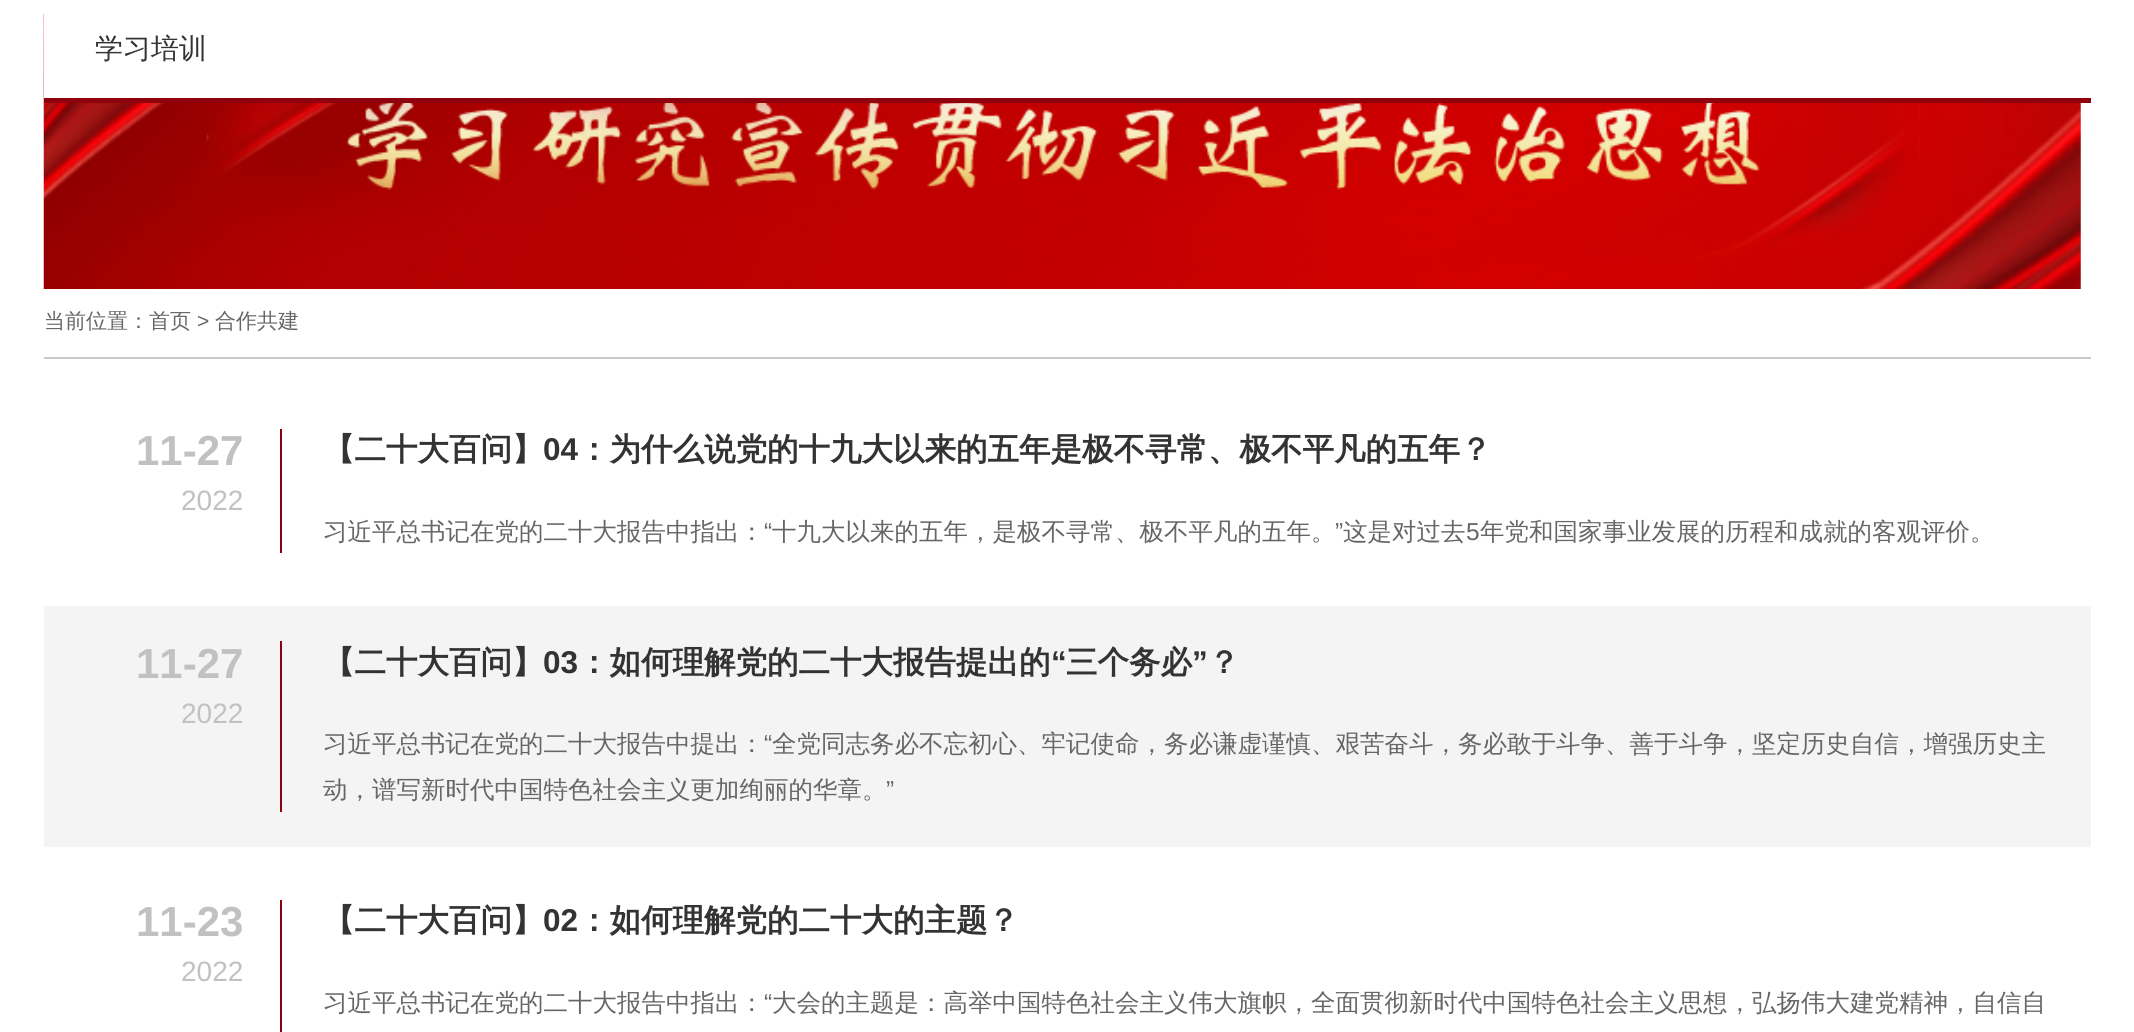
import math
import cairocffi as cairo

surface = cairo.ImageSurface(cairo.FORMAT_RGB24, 2134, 1032)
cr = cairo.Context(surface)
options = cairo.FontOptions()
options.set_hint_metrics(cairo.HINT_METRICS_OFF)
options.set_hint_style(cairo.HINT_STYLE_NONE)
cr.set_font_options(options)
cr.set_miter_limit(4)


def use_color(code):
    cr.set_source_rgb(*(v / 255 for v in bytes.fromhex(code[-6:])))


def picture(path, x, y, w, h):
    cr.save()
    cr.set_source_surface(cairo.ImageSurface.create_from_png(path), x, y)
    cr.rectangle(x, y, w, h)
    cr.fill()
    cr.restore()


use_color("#ffffff")
cr.paint()
picture("img1.png", 43, 14, 2038, 275)
use_color("#ffffff")
cr.rectangle(44, 14, 2037, 84)
cr.fill()
cr.select_font_face("WenQuanYi Zen Hei Medium")
cr.set_font_size(28)
use_color("#333333")
cr.move_to(95, 58)
cr.show_text("学习培训")
use_color("#8f020d")
cr.rectangle(44, 98, 2047, 5)
cr.fill()
use_color("#cacaca")
cr.rectangle(44, 357, 2047, 2)
cr.fill()
cr.set_font_size(21)
use_color("#666666")
cr.move_to(44, 328)
cr.show_text("当前位置：首页")
cr.select_font_face("Liberation Sans")
cr.move_to(197, 328)
cr.show_text(">")
cr.select_font_face("WenQuanYi Zen Hei Medium")
cr.move_to(215, 328)
cr.show_text("合作共建")
cr.select_font_face("Liberation Sans", cairo.FONT_SLANT_NORMAL, cairo.FONT_WEIGHT_BOLD)
cr.set_font_size(42)
use_color("#c1c1c1")
cr.move_to(136, 465)
cr.show_text("11-27")
cr.select_font_face("Liberation Sans")
cr.set_font_size(28)
cr.move_to(181, 510)
cr.show_text("2022")
use_color("#8e010b")
cr.rectangle(280, 429, 2, 124)
cr.fill()
cr.select_font_face("WenQuanYi Zen Hei", cairo.FONT_SLANT_NORMAL, cairo.FONT_WEIGHT_BOLD)
cr.set_font_size(31.5)
use_color("#333333")
cr.move_to(323, 460)
cr.show_text("【二十大百问】")
cr.select_font_face("Liberation Sans", cairo.FONT_SLANT_NORMAL, cairo.FONT_WEIGHT_BOLD)
cr.move_to(543, 460)
cr.show_text("04")
cr.select_font_face("WenQuanYi Zen Hei", cairo.FONT_SLANT_NORMAL, cairo.FONT_WEIGHT_BOLD)
cr.move_to(578, 460)
cr.show_text("：为什么说党的十九大以来的五年是极不寻常、极不平凡的五年？")
cr.select_font_face("WenQuanYi Zen Hei Medium")
cr.set_font_size(24.5)
use_color("#666666")
cr.move_to(323, 540)
cr.show_text("习近平总书记在党的二十大报告中指出：")
cr.select_font_face("Liberation Sans")
cr.move_to(764, 540)
cr.show_text("“")
cr.select_font_face("WenQuanYi Zen Hei Medium")
cr.move_to(772, 540)
cr.show_text("十九大以来的五年，是极不寻常、极不平凡的五年。")
cr.select_font_face("Liberation Sans")
cr.move_to(1335, 540)
cr.show_text("”")
cr.select_font_face("WenQuanYi Zen Hei Medium")
cr.move_to(1343, 540)
cr.show_text("这是对过去")
cr.select_font_face("Liberation Sans")
cr.move_to(1466, 540)
cr.show_text("5")
cr.select_font_face("WenQuanYi Zen Hei Medium")
cr.move_to(1480, 540)
cr.show_text("年党和国家事业发展的历程和成就的客观评价。")
use_color("#f4f4f4")
cr.rectangle(44, 606, 2047, 241)
cr.fill()
cr.select_font_face("Liberation Sans", cairo.FONT_SLANT_NORMAL, cairo.FONT_WEIGHT_BOLD)
cr.set_font_size(42)
use_color("#c1c1c1")
cr.move_to(136, 678)
cr.show_text("11-27")
cr.select_font_face("Liberation Sans")
cr.set_font_size(28)
cr.move_to(181, 723)
cr.show_text("2022")
use_color("#8e010b")
cr.rectangle(280, 641, 2, 171)
cr.fill()
cr.select_font_face("WenQuanYi Zen Hei", cairo.FONT_SLANT_NORMAL, cairo.FONT_WEIGHT_BOLD)
cr.set_font_size(31.5)
use_color("#333333")
cr.move_to(323, 673)
cr.show_text("【二十大百问】")
cr.select_font_face("Liberation Sans", cairo.FONT_SLANT_NORMAL, cairo.FONT_WEIGHT_BOLD)
cr.move_to(543, 673)
cr.show_text("03")
cr.select_font_face("WenQuanYi Zen Hei", cairo.FONT_SLANT_NORMAL, cairo.FONT_WEIGHT_BOLD)
cr.move_to(578, 673)
cr.show_text("：如何理解党的二十大报告提出的")
cr.select_font_face("Liberation Sans", cairo.FONT_SLANT_NORMAL, cairo.FONT_WEIGHT_BOLD)
cr.move_to(1051, 673)
cr.show_text("“")
cr.select_font_face("WenQuanYi Zen Hei", cairo.FONT_SLANT_NORMAL, cairo.FONT_WEIGHT_BOLD)
cr.move_to(1066, 673)
cr.show_text("三个务必")
cr.select_font_face("Liberation Sans", cairo.FONT_SLANT_NORMAL, cairo.FONT_WEIGHT_BOLD)
cr.move_to(1192, 673)
cr.show_text("”")
cr.select_font_face("WenQuanYi Zen Hei", cairo.FONT_SLANT_NORMAL, cairo.FONT_WEIGHT_BOLD)
cr.move_to(1208, 673)
cr.show_text("？")
cr.select_font_face("WenQuanYi Zen Hei Medium")
cr.set_font_size(24.5)
use_color("#666666")
cr.move_to(323, 752)
cr.show_text("习近平总书记在党的二十大报告中提出：")
cr.select_font_face("Liberation Sans")
cr.move_to(764, 752)
cr.show_text("“")
cr.select_font_face("WenQuanYi Zen Hei Medium")
cr.move_to(772, 752)
cr.show_text("全党同志务必不忘初心、牢记使命，务必谦虚谨慎、艰苦奋斗，务必敢于斗争、善于斗争，坚定历史自信，增强历史主")
cr.move_to(323, 798)
cr.show_text("动，谱写新时代中国特色社会主义更加绚丽的华章。")
cr.select_font_face("Liberation Sans")
cr.move_to(886, 798)
cr.show_text("”")
cr.select_font_face("Liberation Sans", cairo.FONT_SLANT_NORMAL, cairo.FONT_WEIGHT_BOLD)
cr.set_font_size(42)
use_color("#c1c1c1")
cr.move_to(136, 936)
cr.show_text("11-23")
cr.select_font_face("Liberation Sans")
cr.set_font_size(28)
cr.move_to(181, 981)
cr.show_text("2022")
use_color("#8e010b")
cr.rectangle(280, 900, 2, 132)
cr.fill()
cr.select_font_face("WenQuanYi Zen Hei", cairo.FONT_SLANT_NORMAL, cairo.FONT_WEIGHT_BOLD)
cr.set_font_size(31.5)
use_color("#333333")
cr.move_to(323, 931)
cr.show_text("【二十大百问】")
cr.select_font_face("Liberation Sans", cairo.FONT_SLANT_NORMAL, cairo.FONT_WEIGHT_BOLD)
cr.move_to(543, 931)
cr.show_text("02")
cr.select_font_face("WenQuanYi Zen Hei", cairo.FONT_SLANT_NORMAL, cairo.FONT_WEIGHT_BOLD)
cr.move_to(578, 931)
cr.show_text("：如何理解党的二十大的主题？")
cr.select_font_face("WenQuanYi Zen Hei Medium")
cr.set_font_size(24.5)
use_color("#666666")
cr.move_to(323, 1011)
cr.show_text("习近平总书记在党的二十大报告中指出：")
cr.select_font_face("Liberation Sans")
cr.move_to(764, 1011)
cr.show_text("“")
cr.select_font_face("WenQuanYi Zen Hei Medium")
cr.move_to(772, 1011)
cr.show_text("大会的主题是：高举中国特色社会主义伟大旗帜，全面贯彻新时代中国特色社会主义思想，弘扬伟大建党精神，自信自")
surface.write_to_png("result.png")
